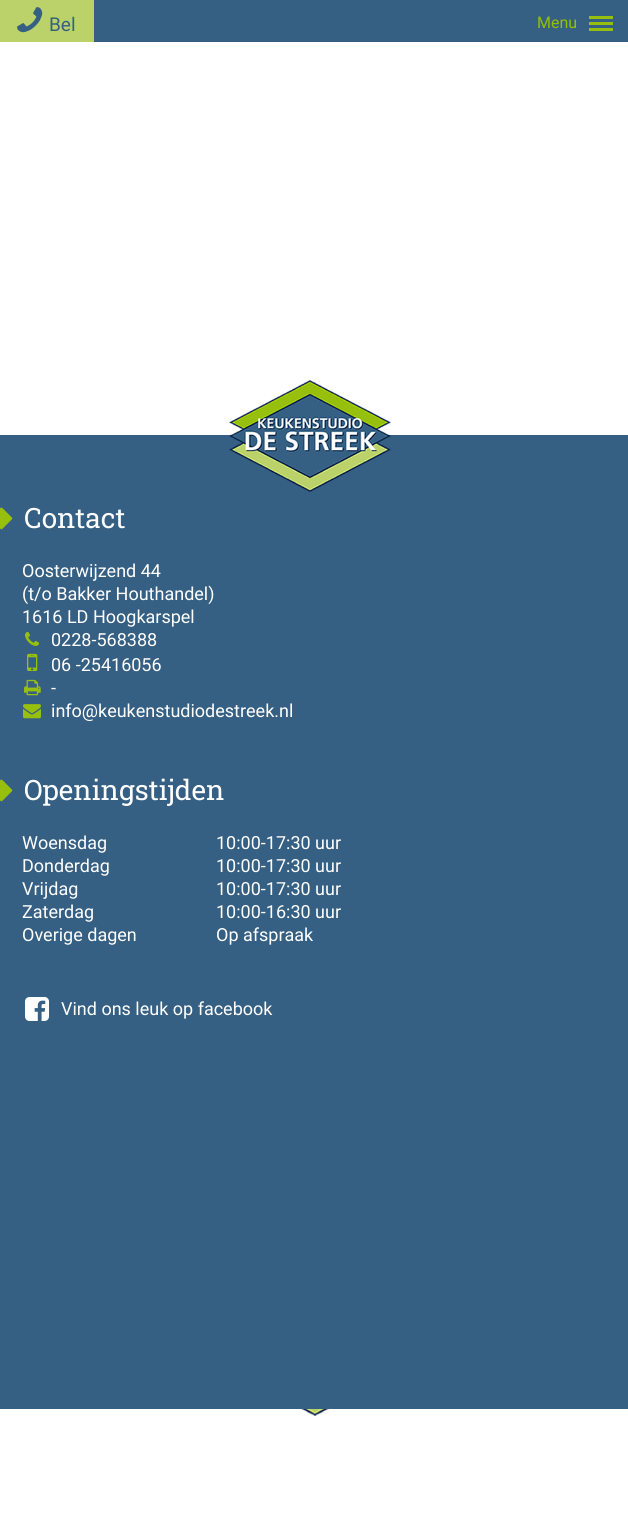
import math
import cairocffi as cairo

surface = cairo.ImageSurface(cairo.FORMAT_RGB24, 628, 1528)
cr = cairo.Context(surface)
options = cairo.FontOptions()
options.set_hint_metrics(cairo.HINT_METRICS_OFF)
options.set_hint_style(cairo.HINT_STYLE_NONE)
cr.set_font_options(options)
cr.set_miter_limit(4)


def use_color(code):
    cr.set_source_rgb(*(v / 255 for v in bytes.fromhex(code[-6:])))


def picture(path, x, y, w, h):
    cr.save()
    cr.set_source_surface(cairo.ImageSurface.create_from_png(path), x, y)
    cr.rectangle(x, y, w, h)
    cr.fill()
    cr.restore()


use_color("#ffffff")
cr.paint()
use_color("#366083")
cr.rectangle(94, 0, 534, 42)
cr.fill()
use_color("#bbd26a")
cr.rectangle(0, 0, 94, 42)
cr.fill()
picture("img1.png", 17, 7, 26, 26)
cr.select_font_face("Roboto")
cr.set_font_size(19)
use_color("#366083")
cr.move_to(49, 31)
cr.show_text("Bel")
cr.set_font_size(16)
use_color("#94c000")
cr.move_to(537, 28)
cr.show_text("Menu")
use_color("#97bf0d")
cr.rectangle(589, 16, 24, 3)
cr.fill()
cr.rectangle(589, 22, 24, 3)
cr.fill()
cr.rectangle(589, 28, 24, 3)
cr.fill()
use_color("#366083")
cr.rectangle(0, 435, 628, 974)
cr.fill()
picture("img2.png", 229, 380, 162, 112)
picture("img3.png", 0, 507, 13, 23)
cr.select_font_face("Roboto Slab")
cr.set_font_size(28)
use_color("#ffffff")
cr.move_to(24, 528)
cr.show_text("Contact")
cr.select_font_face("Roboto")
cr.set_font_size(18)
cr.move_to(22, 577)
cr.show_text("Oosterwijzend 44")
cr.move_to(22, 600)
cr.show_text("(t/o Bakker Houthandel)")
cr.move_to(22, 623)
cr.show_text("1616 LD Hoogkarspel")
picture("img4.png", 25, 631, 15, 15)
cr.move_to(51, 646)
cr.show_text("0228-568388")
picture("img5.png", 27, 653, 11, 18)
cr.move_to(51, 671)
cr.show_text("06 -25416056")
picture("img6.png", 24, 679, 17, 17)
cr.move_to(51, 694)
cr.show_text("-")
picture("img7.png", 23, 704, 18, 15)
cr.move_to(51, 717)
cr.show_text("info@keukenstudiodestreek.nl")
picture("img3.png", 0, 779, 13, 23)
cr.select_font_face("Roboto Slab")
cr.set_font_size(28)
cr.move_to(24, 800)
cr.show_text("Openingstijden")
cr.select_font_face("Roboto")
cr.set_font_size(18)
cr.move_to(22, 849)
cr.show_text("Woensdag")
cr.move_to(216, 849)
cr.show_text("10:00-17:30 uur")
cr.move_to(22, 872)
cr.show_text("Donderdag")
cr.move_to(216, 872)
cr.show_text("10:00-17:30 uur")
cr.move_to(22, 895)
cr.show_text("Vrijdag")
cr.move_to(216, 895)
cr.show_text("10:00-17:30 uur")
cr.move_to(22, 918)
cr.show_text("Zaterdag")
cr.move_to(216, 918)
cr.show_text("10:00-16:30 uur")
cr.move_to(22, 941)
cr.show_text("Overige dagen")
cr.move_to(216, 941)
cr.show_text("Op afspraak")
picture("img8.png", 25, 997, 24, 24)
cr.move_to(61, 1015)
cr.show_text("Vind ons leuk op facebook")
picture("img9.png", 301, 1409, 28, 7)
surface.write_to_png("result.png")
